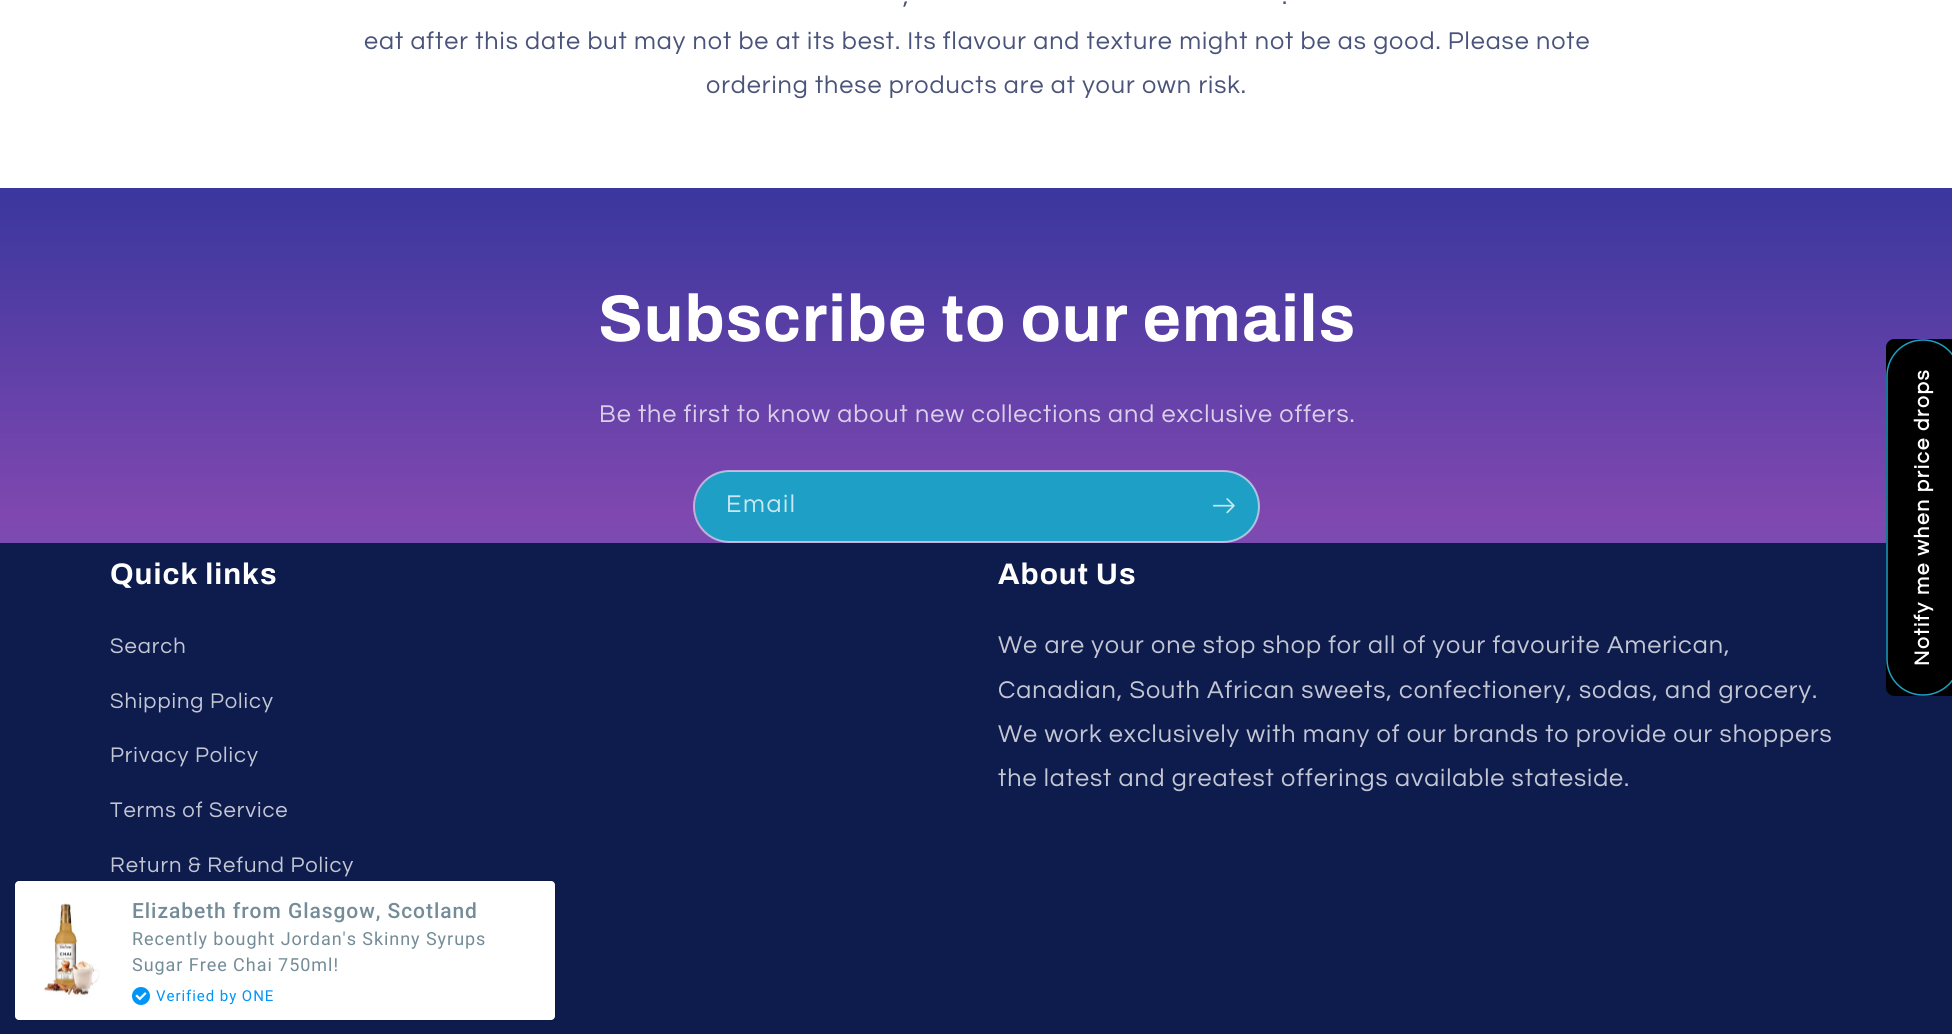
import math
import cairocffi as cairo

surface = cairo.ImageSurface(cairo.FORMAT_RGB24, 1952, 1034)
cr = cairo.Context(surface)
options = cairo.FontOptions()
options.set_hint_metrics(cairo.HINT_METRICS_OFF)
options.set_hint_style(cairo.HINT_STYLE_NONE)
cr.set_font_options(options)
cr.set_miter_limit(4)


def use_color(code):
    cr.set_source_rgb(*(v / 255 for v in bytes.fromhex(code[-6:])))


def spaced_text(x, y, s, letter, word):
    cr.move_to(x, y)
    for ch in s:
        cr.show_text(ch)
        cr.rel_move_to(letter + word * (ch == ' '), 0)


def round_rect(x, y, w, h, r):
    cr.new_sub_path()
    for i, (u, v) in enumerate([(x + w - r, y + h - r), (x + r, y + h - r), (x + r, y + r), (x + w - r, y + r)]):
        cr.arc(u, v, r, i * math.pi / 2, (i + 1) * math.pi / 2)
    cr.close_path()


def shadow(x, y, w, h, r, blur, alpha):
    cr.push_group_with_content(cairo.CONTENT_ALPHA)
    cr.set_operator(cairo.OPERATOR_SOURCE)
    for i in range(15, -16, -2):
        e = blur * i / 6
        if min(w, h) + 2 * e > 0:
            cr.set_source_rgba(0, 0, 0, alpha * math.erfc((i - 1) / 8.5) / 2)
            round_rect(x - e, y - e, w + 2 * e, h + 2 * e, max(0, min(r + e + blur * .6, min(w, h) / 2 + e)))
            cr.fill()
    cr.mask(cr.pop_group())


def picture(path, x, y, w, h):
    cr.save()
    cr.set_source_surface(cairo.ImageSurface.create_from_png(path), x, y)
    cr.rectangle(x, y, w, h)
    cr.fill()
    cr.restore()


use_color("#ffffff")
cr.paint()
cr.select_font_face("Questrial")
cr.set_font_size(25.2)
use_color("#4a547a")
spaced_text(903, 4, ",", 0.95, 0)
spaced_text(1282, 4, ".", 0.95, 0)
spaced_text(364, 49, "eat after this date but may not be at its best. Its flavour and texture might not be as good. Please note", 0.95, 0)
spaced_text(706, 93, "ordering these products are at your own risk.", 0.95, 0)
gradient = cairo.LinearGradient(977, 0, 977, 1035)
gradient.add_color_stop_rgba(0, 0.075, 0.176, 0.576, 1)
gradient.add_color_stop_rgba(0.5, 0.498, 0.282, 0.69, 1)
gradient.add_color_stop_rgba(1, 0.188, 0.569, 0.827, 1)
cr.set_source(gradient)
cr.rectangle(0, 188, 1952, 355)
cr.fill()
cr.select_font_face("Archivo", cairo.FONT_SLANT_NORMAL, cairo.FONT_WEIGHT_BOLD)
cr.set_font_size(66)
use_color("#ffffff")
spaced_text(598, 341, "Subscribe to our emails", 1, 0)
cr.select_font_face("Questrial")
cr.set_font_size(25.2)
use_color("#dad0ea")
spaced_text(599, 422, "Be the first to know about new collections and exclusive offers.", 0.95, 0)
use_color("#1ea0c6")
round_rect(695, 471, 564, 71, 35.5)
cr.fill()
round_rect(694, 471, 565, 71, 35.5)
cr.set_source_rgba(1, 1, 1, 0.55)
cr.stroke()
use_color("#c7e7f1")
spaced_text(726, 512, "Email", 1.6, 0)
picture("img1.png", 1212, 498, 23, 16)
use_color("#0e1b4d")
cr.rectangle(0, 543, 1952, 491)
cr.fill()
use_color("#000000")
cr.new_path()
cr.move_to(1886, 688)
cr.line_to(1886, 347)
cr.curve_to(1886, 343, 1890, 339, 1894, 339)
cr.line_to(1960, 339)
cr.line_to(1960, 696)
cr.line_to(1894, 696)
cr.curve_to(1890, 696, 1886, 692, 1886, 688)
cr.close_path()
cr.fill()
cr.select_font_face("Questrial", cairo.FONT_SLANT_NORMAL, cairo.FONT_WEIGHT_BOLD)
cr.set_font_size(21)
use_color("#ffffff")
cr.save()
cr.translate(1929, 666)
cr.rotate(-90 * math.pi / 180)
spaced_text(0, 0, "Notify me when price drops", 1.6, 0)
cr.restore()
cr.new_path()
cr.move_to(1887, 659)
cr.line_to(1887, 376)
cr.curve_to(1887, 356, 1903, 340, 1923, 340)
cr.curve_to(1943, 340, 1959.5, 356, 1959.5, 376)
cr.line_to(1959.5, 659)
cr.curve_to(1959.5, 679, 1943, 695, 1923, 695)
cr.curve_to(1903, 695, 1887, 679, 1887, 659)
cr.close_path()
use_color("#1ea0c6")
cr.set_line_width(1.5)
cr.stroke()
cr.select_font_face("Archivo", cairo.FONT_SLANT_NORMAL, cairo.FONT_WEIGHT_BOLD)
cr.set_font_size(29.75)
use_color("#ffffff")
spaced_text(110, 584, "Quick links", 1, 0)
cr.select_font_face("Questrial")
cr.set_font_size(22)
use_color("#c3c6d3")
spaced_text(110, 653, "Search", 0.95, 0)
spaced_text(110, 708, "Shipping Policy", 0.95, 0)
spaced_text(110, 762, "Privacy Policy", 0.95, 0)
spaced_text(110, 817, "Terms of Service", 0.95, 0)
spaced_text(110, 872, "Return & Refund Policy", 0.95, 0)
cr.select_font_face("Archivo", cairo.FONT_SLANT_NORMAL, cairo.FONT_WEIGHT_BOLD)
cr.set_font_size(29.75)
use_color("#ffffff")
spaced_text(998, 584, "About Us", 1, 0)
cr.select_font_face("Questrial")
cr.set_font_size(25.2)
use_color("#c3c6d3")
spaced_text(998, 653, "We are your one stop shop for all of your favourite American,", 0.95, 0)
spaced_text(998, 698, "Canadian, South African sweets, confectionery, sodas, and grocery.", 0.95, 0)
spaced_text(998, 742, "We work exclusively with many of our brands to provide our shoppers", 0.95, 0)
spaced_text(998, 786, "the latest and greatest offerings available stateside.", 0.95, 0)
use_color("#000000")
shadow(15, 881, 540, 139, 4, 1, 0.2)
use_color("#ffffff")
round_rect(15, 881, 540, 139, 4)
cr.fill()
picture("img2.png", 44, 903, 56, 95)
cr.select_font_face("Roboto Medium")
cr.set_font_size(21)
use_color("#738c98")
spaced_text(132, 918, "Elizabeth from Glasgow, Scotland", 0.95, 0)
cr.select_font_face("Roboto")
cr.set_font_size(18)
spaced_text(132, 945, "Recently bought Jordan's Skinny Syrups", 0.95, 0)
spaced_text(132, 971, "Sugar Free Chai 750ml!", 0.95, 0)
picture("img3.png", 132, 987, 18, 18)
cr.set_font_size(15)
use_color("#0095f7")
spaced_text(156, 1001, "Verified by ONE", 0.95, 0)
surface.write_to_png("result.png")
